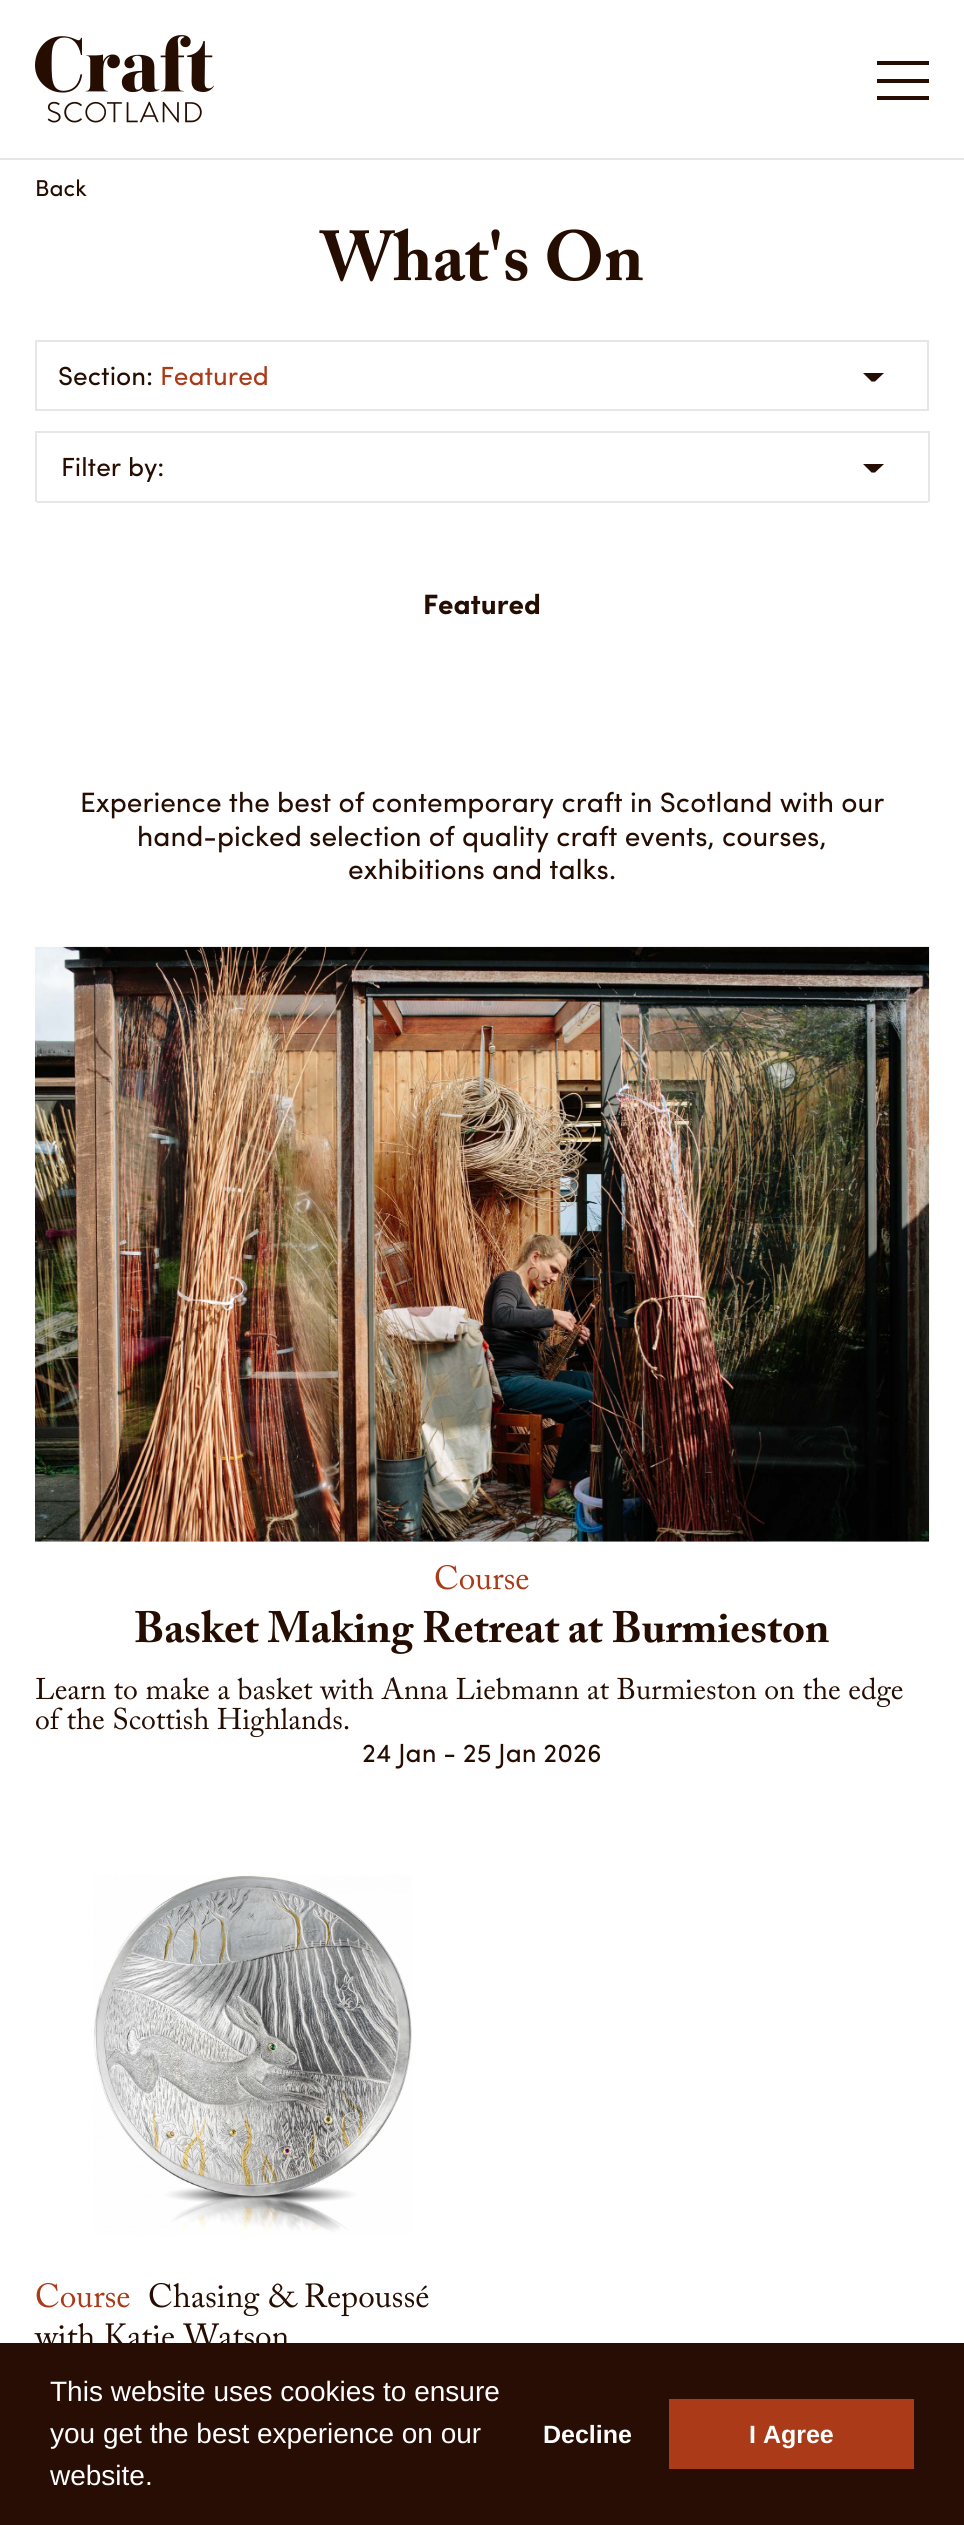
import math
import cairocffi as cairo

surface = cairo.ImageSurface(cairo.FORMAT_RGB24, 964, 2525)
cr = cairo.Context(surface)
options = cairo.FontOptions()
options.set_hint_metrics(cairo.HINT_METRICS_OFF)
options.set_hint_style(cairo.HINT_STYLE_NONE)
cr.set_font_options(options)
cr.set_miter_limit(4)


def use_color(code):
    cr.set_source_rgb(*(v / 255 for v in bytes.fromhex(code[-6:])))


def picture(path, x, y, w, h):
    cr.save()
    cr.set_source_surface(cairo.ImageSurface.create_from_png(path), x, y)
    cr.rectangle(x, y, w, h)
    cr.fill()
    cr.restore()


use_color("#ffffff")
cr.paint()
use_color("#e6e6e6")
cr.rectangle(0, 158, 964, 2)
cr.fill()
picture("img1.png", 35, 35, 179, 88)
use_color("#260d02")
cr.rectangle(877, 61, 52, 4)
cr.fill()
cr.rectangle(877, 79, 52, 4)
cr.fill()
cr.rectangle(877, 96, 52, 4)
cr.fill()
cr.select_font_face("Sofia")
cr.set_font_size(23)
cr.move_to(35, 196)
cr.show_text("Back")
cr.select_font_face("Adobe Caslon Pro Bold", cairo.FONT_SLANT_NORMAL, cairo.FONT_WEIGHT_BOLD)
cr.set_font_size(70)
cr.move_to(320, 280)
cr.show_text("What's On")
cr.rectangle(36, 341, 892, 69)
use_color("#e6e6e6")
cr.stroke()
cr.select_font_face("Sofia")
cr.set_font_size(26.25)
use_color("#260d02")
cr.move_to(58, 385)
cr.show_text("Section:")
use_color("#ab3a18")
cr.move_to(160, 385)
cr.show_text("Featured")
use_color("#260d02")
cr.new_path()
cr.move_to(863, 373)
cr.line_to(884, 373)
cr.line_to(875, 381.5)
cr.line_to(871.5, 381.5)
cr.close_path()
cr.fill()
use_color("#e6e6e6")
cr.rectangle(928, 431, 2, 71)
cr.fill()
cr.rectangle(35, 431, 2, 71)
cr.fill()
cr.rectangle(37, 431, 891, 2)
cr.fill()
use_color("#260d02")
cr.move_to(61, 476)
cr.show_text("Filter by:")
cr.new_path()
cr.move_to(863, 464)
cr.line_to(884, 464)
cr.line_to(875, 472.5)
cr.line_to(871.5, 472.5)
cr.close_path()
cr.fill()
use_color("#e6e6e6")
cr.rectangle(37, 501, 891, 2)
cr.fill()
cr.select_font_face("Sofia", cairo.FONT_SLANT_NORMAL, cairo.FONT_WEIGHT_BOLD)
cr.set_font_size(28)
use_color("#260d02")
cr.move_to(423, 614)
cr.show_text("Featured")
cr.select_font_face("Sofia")
cr.move_to(80, 812)
cr.show_text("Experience the best of contemporary craft in Scotland with our")
cr.move_to(137, 846)
cr.show_text("hand-picked selection of quality craft events, courses,")
cr.move_to(348, 879)
cr.show_text("exhibitions and talks.")
picture("img2.png", 35, 946, 895, 596)
cr.select_font_face("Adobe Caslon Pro")
cr.set_font_size(33.25)
use_color("#ab3a18")
cr.move_to(434, 1589)
cr.show_text("Course")
cr.select_font_face("Adobe Caslon Pro Bold", cairo.FONT_SLANT_NORMAL, cairo.FONT_WEIGHT_BOLD)
cr.set_font_size(43.75)
use_color("#260d02")
cr.move_to(134, 1642)
cr.show_text("Basket Making Retreat at Burmieston")
cr.select_font_face("Adobe Caslon Pro")
cr.set_font_size(29.75)
cr.move_to(35, 1699)
cr.show_text("Learn to make a basket with Anna Liebmann at Burmieston on the edge")
cr.move_to(35, 1729)
cr.show_text("of the Scottish Highlands.")
cr.select_font_face("Sofia")
cr.set_font_size(26.25)
cr.move_to(362, 1762)
cr.show_text("24 Jan - 25 Jan 2026")
picture("img3.png", 93, 1875, 319, 360)
cr.select_font_face("Adobe Caslon Pro")
cr.set_font_size(33.25)
use_color("#ab3a18")
cr.move_to(35, 2307)
cr.show_text("Course")
use_color("#260d02")
cr.move_to(148, 2307)
cr.show_text("Chasing & Repoussé")
cr.move_to(35, 2347)
cr.show_text("with Katie Watson")
use_color("#280d04")
cr.rectangle(0, 2343, 964, 182)
cr.fill()
cr.select_font_face("Liberation Sans")
cr.set_font_size(28)
use_color("#ffffff")
cr.move_to(50, 2401)
cr.show_text("This website uses cookies to ensure")
cr.move_to(50, 2443)
cr.show_text("you get the best experience on our")
cr.move_to(50, 2485)
cr.show_text("website.")
cr.select_font_face("Liberation Sans", cairo.FONT_SLANT_NORMAL, cairo.FONT_WEIGHT_BOLD)
cr.set_font_size(25)
cr.move_to(543, 2443)
cr.show_text("Decline")
use_color("#ab3a18")
cr.rectangle(669, 2399, 245, 70)
cr.fill()
use_color("#ffffff")
cr.move_to(749, 2443)
cr.show_text("I Agree")
surface.write_to_png("result.png")
